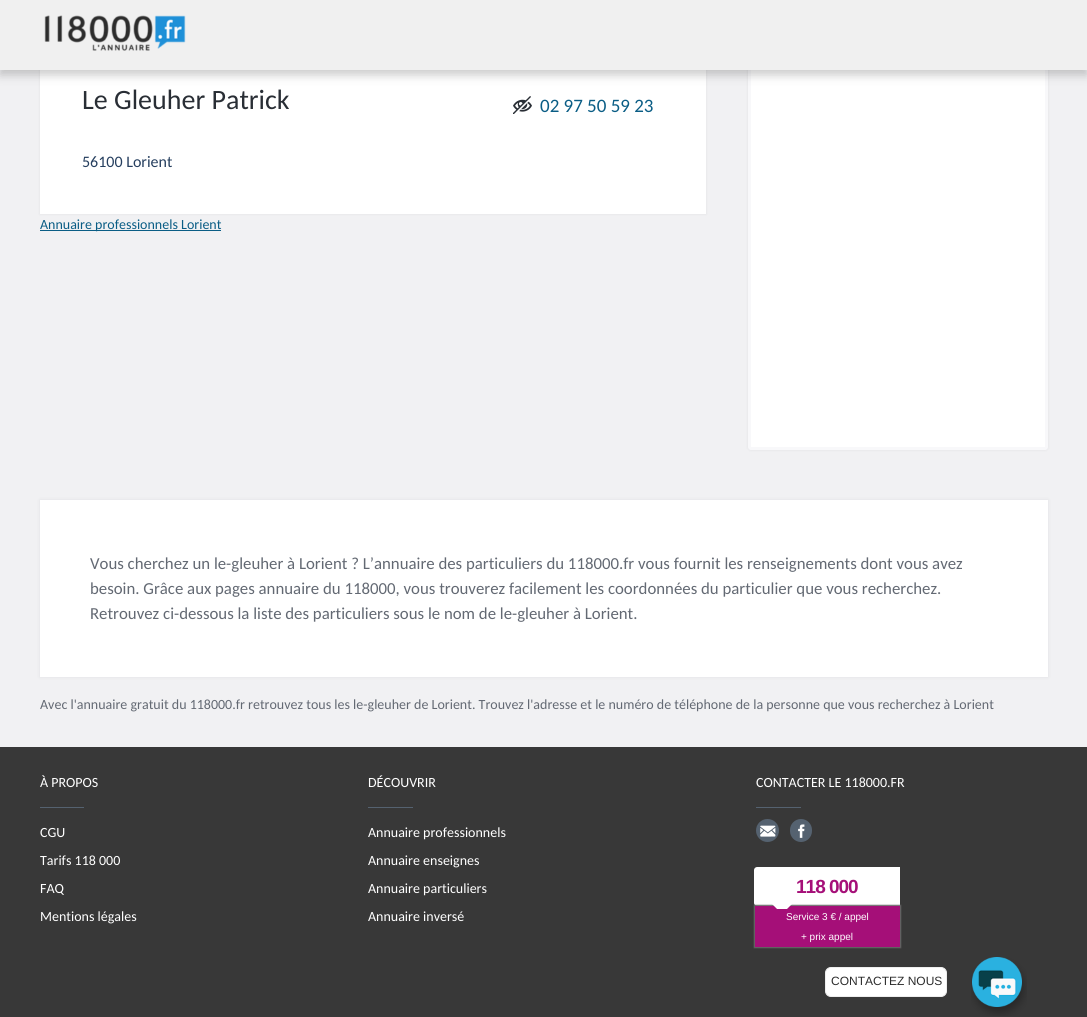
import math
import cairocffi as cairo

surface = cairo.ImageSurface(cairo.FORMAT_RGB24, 1087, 1017)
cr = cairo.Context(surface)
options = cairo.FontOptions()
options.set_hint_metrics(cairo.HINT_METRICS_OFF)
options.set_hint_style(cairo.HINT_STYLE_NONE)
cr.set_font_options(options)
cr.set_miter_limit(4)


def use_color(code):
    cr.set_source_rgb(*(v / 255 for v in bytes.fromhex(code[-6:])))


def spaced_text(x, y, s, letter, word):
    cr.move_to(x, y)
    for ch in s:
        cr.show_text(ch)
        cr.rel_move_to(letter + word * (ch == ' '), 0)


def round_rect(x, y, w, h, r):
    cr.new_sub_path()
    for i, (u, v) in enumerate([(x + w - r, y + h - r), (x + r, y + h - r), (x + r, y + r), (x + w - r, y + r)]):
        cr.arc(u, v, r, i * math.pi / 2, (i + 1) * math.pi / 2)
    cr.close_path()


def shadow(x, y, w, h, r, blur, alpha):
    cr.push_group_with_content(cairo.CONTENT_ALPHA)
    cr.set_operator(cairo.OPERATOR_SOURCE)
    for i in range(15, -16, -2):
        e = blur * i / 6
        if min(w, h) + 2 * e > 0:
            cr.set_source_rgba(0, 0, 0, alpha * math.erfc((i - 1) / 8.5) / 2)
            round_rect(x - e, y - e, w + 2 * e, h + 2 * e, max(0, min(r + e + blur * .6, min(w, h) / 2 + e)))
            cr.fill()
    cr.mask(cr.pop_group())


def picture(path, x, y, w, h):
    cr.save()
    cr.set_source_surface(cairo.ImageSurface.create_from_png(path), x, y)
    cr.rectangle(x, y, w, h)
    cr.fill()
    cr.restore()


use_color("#f1f1f3")
cr.paint()
use_color("#292e35")
shadow(40, 64, 666, 150, 0, 1.5, 0.08)
use_color("#ffffff")
cr.rectangle(40, 70, 666, 144)
cr.fill()
use_color("#292e35")
shadow(748, -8, 300, 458, 3, 1.5, 0.08)
use_color("#ffffff")
round_rect(749.5, -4.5, 297, 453, 1.5)
cr.fill_preserve()
use_color("#f8f8fa")
cr.set_line_width(3)
cr.stroke()
use_color("#2b2b2b")
shadow(0, 5, 1087, 70, 0, 5, 0.25)
use_color("#f0f0f0")
cr.rectangle(0, 0, 1087, 70)
cr.fill()
picture("img1.png", 44, 15, 142, 36)
cr.select_font_face("Carlito")
cr.set_font_size(28)
use_color("#292e35")
cr.move_to(82, 109)
cr.show_text("Le Gleuher Patrick")
cr.set_font_size(16)
use_color("#263f5f")
cr.move_to(82, 167)
cr.show_text("56100 Lorient")
picture("img2.png", 513, 96, 19, 18)
cr.set_font_size(19)
use_color("#0a5d85")
cr.move_to(540, 112)
cr.show_text("02 97 50 59 23")
cr.rectangle(40, 230, 181, 1)
cr.fill()
cr.set_font_size(14)
cr.move_to(40, 229)
cr.show_text("Annuaire professionnels Lorient")
use_color("#292e35")
shadow(40, 500, 1008, 177, 0, 2, 0.08)
use_color("#ffffff")
cr.rectangle(40, 500, 1008, 177)
cr.fill()
cr.set_font_size(16.8)
use_color("#636973")
cr.move_to(90, 569)
cr.show_text("Vous cherchez un le-gleuher à Lorient ? L’annuaire des particuliers du 118000.fr vous fournit les renseignements dont vous avez")
cr.move_to(90, 594)
cr.show_text("besoin. Grâce aux pages annuaire du 118000, vous trouverez facilement les coordonnées du particulier que vous recherchez.")
cr.move_to(90, 619)
cr.show_text("Retrouvez ci-dessous la liste des particuliers sous le nom de le-gleuher à Lorient.")
cr.set_font_size(14)
cr.move_to(40, 709)
cr.show_text("Avec l'annuaire gratuit du 118000.fr retrouvez tous les le-gleuher de Lorient. Trouvez l'adresse et le numéro de téléphone de la personne que vous recherchez à Lorient")
use_color("#383838")
cr.rectangle(0, 747, 1087, 270)
cr.fill()
use_color("#ffffff")
cr.move_to(40, 787)
cr.show_text("À PROPOS")
use_color("#556270")
cr.rectangle(40, 807, 44, 1)
cr.fill()
use_color("#ffffff")
cr.move_to(40, 837)
cr.show_text("CGU")
cr.move_to(40, 865)
cr.show_text("Tarifs 118 000")
cr.move_to(40, 893)
cr.show_text("FAQ")
cr.move_to(40, 921)
cr.show_text("Mentions légales")
cr.move_to(368, 787)
cr.show_text("DÉCOUVRIR")
use_color("#556270")
cr.rectangle(368, 807, 45, 1)
cr.fill()
use_color("#ffffff")
cr.move_to(368, 837)
cr.show_text("Annuaire professionnels")
cr.move_to(368, 865)
cr.show_text("Annuaire enseignes")
cr.move_to(368, 893)
cr.show_text("Annuaire particuliers")
cr.move_to(368, 921)
cr.show_text("Annuaire inversé")
cr.move_to(756, 787)
cr.show_text("CONTACTER LE 118000.FR")
use_color("#556270")
cr.rectangle(756, 807, 45, 1)
cr.fill()
cr.arc(767.5, 830.5, 11.5, 0, 2 * math.pi)
cr.fill()
picture("img3.png", 760, 825, 16, 12)
round_rect(790, 819, 22, 23, 11)
cr.fill()
picture("img4.png", 798, 824, 7, 14)
use_color("#ffffff")
cr.new_path()
cr.move_to(757, 867)
cr.line_to(900, 867)
cr.line_to(900, 906)
cr.line_to(757, 906)
cr.curve_to(755.5, 906, 754, 904.5, 754, 903)
cr.line_to(754, 870)
cr.curve_to(754, 868.5, 755.5, 867, 757, 867)
cr.close_path()
cr.fill()
cr.select_font_face("Liberation Sans", cairo.FONT_SLANT_NORMAL, cairo.FONT_WEIGHT_BOLD)
cr.set_font_size(19)
use_color("#a50f78")
spaced_text(796, 893, "118 000", -1, 0)
use_color("#666666")
shadow(754, 905, 147, 43, 0, 0.5, 1)
use_color("#a50f78")
cr.rectangle(755, 906, 145, 41)
cr.fill()
use_color("#ffffff")
cr.new_path()
cr.move_to(767, 899)
cr.line_to(797, 899)
cr.line_to(787, 909)
cr.line_to(777, 909)
cr.close_path()
cr.fill()
cr.select_font_face("Liberation Sans")
cr.set_font_size(10)
cr.move_to(786, 920)
cr.show_text("Service 3 € / appel")
cr.move_to(801, 940)
cr.show_text("+ prix appel")
round_rect(825.5, 967.5, 121, 29, 5.5)
cr.fill_preserve()
use_color("#eeeeee")
cr.set_line_width(1)
cr.stroke()
cr.set_font_size(12)
use_color("#2c2c2c")
cr.move_to(831, 985)
cr.show_text("CONTACTEZ NOUS")
picture("img5.png", 971, 957, 56, 59)
surface.write_to_png("result.png")
